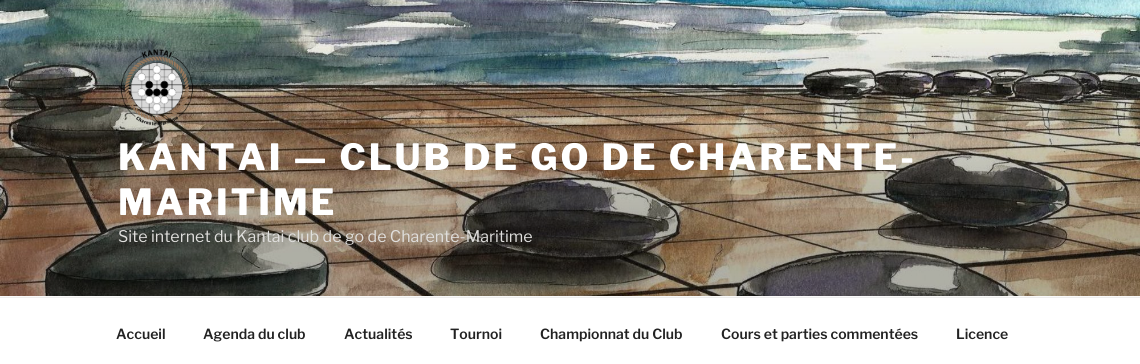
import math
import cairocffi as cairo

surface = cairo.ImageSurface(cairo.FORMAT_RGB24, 1140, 364)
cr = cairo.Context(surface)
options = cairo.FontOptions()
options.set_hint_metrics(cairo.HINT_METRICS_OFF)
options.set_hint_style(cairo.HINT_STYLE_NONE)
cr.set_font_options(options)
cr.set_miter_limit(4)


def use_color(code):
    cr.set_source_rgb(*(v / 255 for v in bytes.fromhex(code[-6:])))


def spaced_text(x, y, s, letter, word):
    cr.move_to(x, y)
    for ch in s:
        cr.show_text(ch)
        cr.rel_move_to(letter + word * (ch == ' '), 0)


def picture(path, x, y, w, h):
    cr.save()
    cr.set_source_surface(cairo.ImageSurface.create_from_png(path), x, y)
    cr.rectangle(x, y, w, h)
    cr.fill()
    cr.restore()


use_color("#fafafa")
cr.paint()
picture("img1.png", 0, 0, 1140, 296)
picture("img2.png", 121, 49, 72, 77)
cr.select_font_face("Libre Franklin Thin")
cr.set_font_size(36)
use_color("#ffffff")
spaced_text(118, 170, "KANTAI — CLUB DE GO DE CHARENTE-", 2.9, 0)
spaced_text(118, 215, "MARITIME", 2.9, 0)
cr.select_font_face("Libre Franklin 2 Thin")
cr.set_font_size(16)
use_color("#e0dfdd")
cr.move_to(118, 242)
cr.show_text("Site internet du Kantai club de go de Charente-Maritime")
use_color("#ffffff")
cr.rectangle(0, 298, 1140, 66)
cr.fill()
use_color("#eeeeee")
cr.rectangle(0, 297, 1140, 1)
cr.fill()
cr.select_font_face("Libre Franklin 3 Thin")
cr.set_font_size(14)
use_color("#222222")
cr.move_to(116, 339)
cr.show_text("Accueil")
cr.move_to(203, 339)
cr.show_text("Agenda du club")
cr.move_to(344, 339)
cr.show_text("Actualités")
cr.move_to(450, 339)
cr.show_text("Tournoi")
cr.move_to(540, 339)
cr.show_text("Championnat du Club")
cr.move_to(721, 339)
cr.show_text("Cours et parties commentées")
cr.move_to(956, 339)
cr.show_text("Licence")
surface.write_to_png("result.png")
